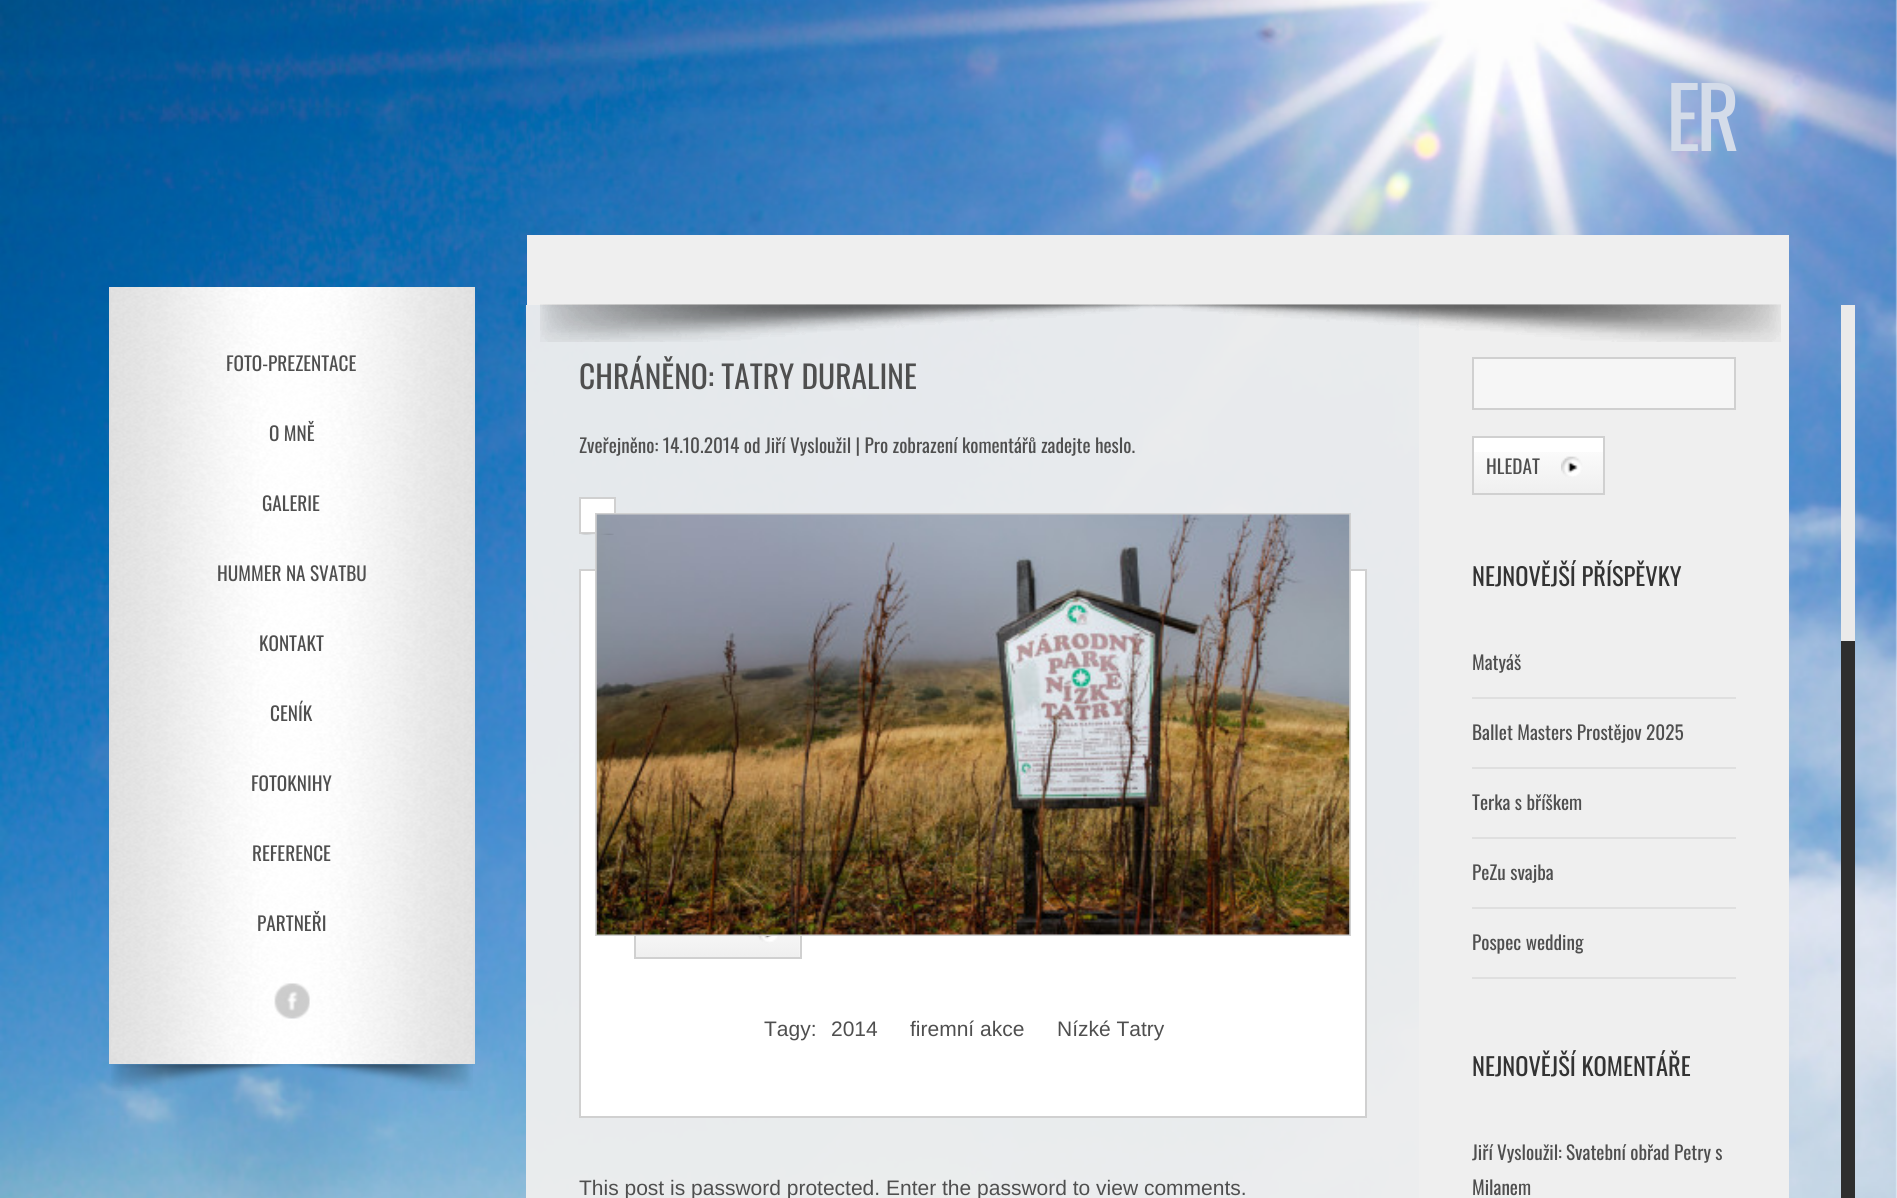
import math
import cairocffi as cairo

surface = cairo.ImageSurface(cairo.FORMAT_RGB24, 1897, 1198)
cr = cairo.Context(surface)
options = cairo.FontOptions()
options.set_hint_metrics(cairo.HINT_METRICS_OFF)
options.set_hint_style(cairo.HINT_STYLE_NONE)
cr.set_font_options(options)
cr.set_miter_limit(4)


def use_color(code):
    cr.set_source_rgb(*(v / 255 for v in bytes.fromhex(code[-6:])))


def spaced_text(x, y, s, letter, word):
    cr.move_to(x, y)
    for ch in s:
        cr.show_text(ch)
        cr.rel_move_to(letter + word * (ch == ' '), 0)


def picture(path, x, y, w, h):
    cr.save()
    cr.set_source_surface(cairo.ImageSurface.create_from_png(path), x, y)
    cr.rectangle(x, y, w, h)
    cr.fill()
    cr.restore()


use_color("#ffffff")
cr.paint()
picture("img1.png", 0, 0, 1897, 1198)
picture("img2.png", 111, 287, 362, 777)
use_color("#dedede")
cr.rectangle(473, 287, 2, 777)
cr.fill()
cr.rectangle(109, 287, 2, 777)
cr.fill()
cr.select_font_face("Oswald")
cr.set_font_size(19.25)
use_color("#4f4f4f")
cr.move_to(226, 371)
cr.show_text("FOTO-PREZENTACE")
cr.move_to(269, 441)
cr.show_text("O MNĚ")
cr.move_to(262, 511)
cr.show_text("GALERIE")
cr.move_to(217, 581)
cr.show_text("HUMMER NA SVATBU")
cr.move_to(259, 651)
cr.show_text("KONTAKT")
cr.move_to(270, 721)
cr.show_text("CENÍK")
cr.move_to(251, 791)
cr.show_text("FOTOKNIHY")
cr.move_to(252, 861)
cr.show_text("REFERENCE")
cr.move_to(257, 931)
cr.show_text("PARTNEŘI")
picture("img3.png", 274, 983, 36, 36)
cr.set_font_size(84)
use_color("#d4dce9")
spaced_text(1666, 151, "ER", -4, 0)
use_color("#efefef")
cr.rectangle(527, 235, 1262, 70)
cr.fill()
cr.set_source_rgba(0.937, 0.937, 0.937, 0.95)
cr.rectangle(526, 305, 893, 893)
cr.fill()
use_color("#efefef")
cr.rectangle(1419, 305, 370, 893)
cr.fill()
picture("img4.png", 540, 304, 1241, 38)
picture("img5.png", 540, 304, 1241, 38)
picture("img6.png", 540, 304, 1241, 38)
cr.set_font_size(31.5)
use_color("#4f4f4f")
cr.move_to(579, 389)
cr.show_text("CHRÁNĚNO: TATRY DURALINE")
cr.set_font_size(19.25)
cr.move_to(579, 453)
cr.show_text("Zveřejněno: 14.10.2014 od Jiří Vysloužil | Pro zobrazení komentářů zadejte heslo.")
use_color("#ffffff")
cr.rectangle(580, 498, 35, 35)
cr.fill_preserve()
use_color("#d0d0d0")
cr.stroke()
use_color("#ffffff")
cr.rectangle(580, 570, 786, 547)
cr.fill_preserve()
use_color("#d0d0d0")
cr.stroke()
picture("img10.png", 636, 936, 164, 21)
cr.rectangle(635, 904, 166, 54)
cr.stroke()
cr.rectangle(596, 514, 754, 421)
cr.stroke()
picture("img7.png", 596, 514, 754, 421)
picture("img8.png", 581, 533, 33, 2)
picture("img9.png", 647, 850, 662, 17)
cr.select_font_face("Liberation Sans")
cr.set_font_size(21)
use_color("#4f4f4f")
cr.move_to(764, 1036)
cr.show_text("Tagy:")
cr.move_to(831, 1036)
cr.show_text("2014")
cr.move_to(910, 1036)
cr.show_text("firemní akce")
cr.move_to(1057, 1036)
cr.show_text("Nízké Tatry")
cr.move_to(579, 1195)
cr.show_text("This post is password protected. Enter the password to view comments.")
use_color("#f6f6f6")
cr.rectangle(1473, 358, 262, 51)
cr.fill_preserve()
use_color("#d0d0d0")
cr.stroke()
use_color("#ffffff")
cr.rectangle(1474, 438, 129, 14)
cr.fill()
picture("img11.png", 1474, 452, 129, 41)
cr.rectangle(1473, 437, 131, 57)
use_color("#d0d0d0")
cr.stroke()
cr.select_font_face("Oswald")
cr.set_font_size(19.25)
use_color("#4f4f4f")
cr.move_to(1486, 474)
cr.show_text("HLEDAT")
cr.set_font_size(24.5)
use_color("#333333")
cr.move_to(1472, 586)
cr.show_text("NEJNOVĚJŠÍ PŘÍSPĚVKY")
use_color("#dfdfdf")
cr.rectangle(1472, 697, 264, 2)
cr.fill()
cr.set_font_size(19.25)
use_color("#4f4f4f")
cr.move_to(1472, 670)
cr.show_text("Matyáš")
use_color("#dfdfdf")
cr.rectangle(1472, 767, 264, 2)
cr.fill()
use_color("#4f4f4f")
cr.move_to(1472, 740)
cr.show_text("Ballet Masters Prostějov 2025")
use_color("#dfdfdf")
cr.rectangle(1472, 837, 264, 2)
cr.fill()
use_color("#4f4f4f")
cr.move_to(1472, 810)
cr.show_text("Terka s bříškem")
use_color("#dfdfdf")
cr.rectangle(1472, 907, 264, 2)
cr.fill()
use_color("#4f4f4f")
cr.move_to(1472, 880)
cr.show_text("PeZu svajba")
use_color("#dfdfdf")
cr.rectangle(1472, 977, 264, 2)
cr.fill()
use_color("#4f4f4f")
cr.move_to(1472, 950)
cr.show_text("Pospec wedding")
cr.set_font_size(24.5)
use_color("#333333")
cr.move_to(1472, 1076)
cr.show_text("NEJNOVĚJŠÍ KOMENTÁŘE")
cr.set_font_size(19.25)
use_color("#4f4f4f")
cr.move_to(1472, 1160)
cr.show_text("Jiří Vysloužil:")
cr.move_to(1566, 1160)
cr.show_text("Svatební obřad Petry s")
cr.move_to(1472, 1195)
cr.show_text("Milanem")
use_color("#2e2e2e")
cr.rectangle(1841, 641, 14, 557)
cr.fill()
use_color("#eaeaea")
cr.rectangle(1841, 305, 14, 336)
cr.fill()
picture("img12.png", 111, 1064, 362, 27)
surface.write_to_png("result.png")
